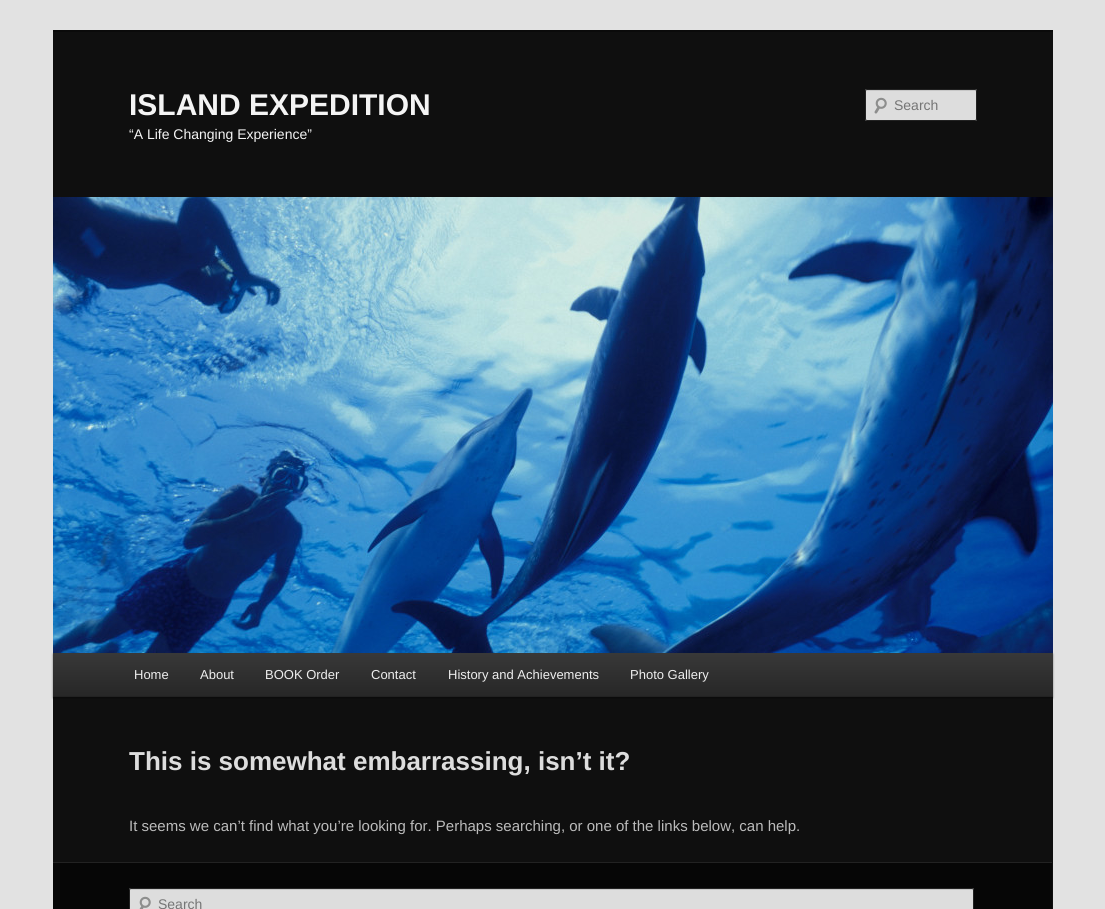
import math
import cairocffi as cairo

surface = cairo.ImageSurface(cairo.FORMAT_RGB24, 1105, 909)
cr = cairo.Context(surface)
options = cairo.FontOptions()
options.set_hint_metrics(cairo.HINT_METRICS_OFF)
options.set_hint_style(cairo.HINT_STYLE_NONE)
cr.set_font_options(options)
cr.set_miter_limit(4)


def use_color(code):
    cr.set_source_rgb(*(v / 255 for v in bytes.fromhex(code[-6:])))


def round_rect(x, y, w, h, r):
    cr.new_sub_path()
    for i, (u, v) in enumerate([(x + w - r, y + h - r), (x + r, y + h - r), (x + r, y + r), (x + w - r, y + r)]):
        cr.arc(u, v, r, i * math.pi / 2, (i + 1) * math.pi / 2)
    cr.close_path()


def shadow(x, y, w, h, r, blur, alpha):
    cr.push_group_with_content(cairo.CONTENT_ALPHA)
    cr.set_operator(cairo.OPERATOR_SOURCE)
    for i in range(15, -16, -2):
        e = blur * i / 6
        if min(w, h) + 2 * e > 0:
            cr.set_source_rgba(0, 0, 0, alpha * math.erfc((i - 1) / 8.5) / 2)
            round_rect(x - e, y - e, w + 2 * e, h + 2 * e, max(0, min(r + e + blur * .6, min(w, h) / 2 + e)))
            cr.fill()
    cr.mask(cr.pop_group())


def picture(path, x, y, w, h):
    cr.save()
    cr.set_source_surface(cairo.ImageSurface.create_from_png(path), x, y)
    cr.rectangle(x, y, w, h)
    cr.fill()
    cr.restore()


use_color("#e2e2e2")
cr.paint()
use_color("#0f0f0f")
cr.rectangle(53, 32, 1000, 877)
cr.fill()
use_color("#0a0a0a")
cr.rectangle(53, 30, 1000, 2)
cr.fill()
cr.select_font_face("Liberation Sans", cairo.FONT_SLANT_NORMAL, cairo.FONT_WEIGHT_BOLD)
cr.set_font_size(30)
use_color("#f4f4f4")
cr.move_to(129, 115)
cr.show_text("ISLAND EXPEDITION")
cr.select_font_face("Liberation Sans")
cr.set_font_size(14)
cr.move_to(129, 139)
cr.show_text("“A Life Changing Experience”")
use_color("#dddddd")
round_rect(865, 89, 112, 32, 2)
cr.fill()
picture("img1.png", 874, 97, 13, 17)
cr.set_source_rgba(0, 0, 0, 0.1)
cr.new_path()
cr.move_to(867, 91)
cr.line_to(976, 91)
cr.line_to(976, 92)
cr.line_to(975, 90)
cr.line_to(885, 90)
cr.curve_to(881, 90, 866, 85, 866, 92)
cr.curve_to(866, 91, 866, 91, 867, 91)
cr.close_path()
cr.fill()
round_rect(865.5, 89.5, 111, 31, 1.5)
use_color("#222222")
cr.set_line_width(1)
cr.stroke()
use_color("#757575")
cr.move_to(894, 110)
cr.show_text("Search")
use_color("#000000")
shadow(53, 654, 1000, 44, 0, 1, 0.4)
picture("img2.png", 53, 197, 1000, 456)
gradient = cairo.LinearGradient(553, 653, 553, 696)
gradient.add_color_stop_rgba(0, 0.22, 0.22, 0.22, 1)
gradient.add_color_stop_rgba(1, 0.153, 0.153, 0.153, 1)
cr.set_source(gradient)
cr.rectangle(53, 653, 1000, 43)
cr.fill()
use_color("#222222")
cr.rectangle(53, 696, 1000, 1)
cr.fill()
cr.set_font_size(13)
use_color("#eeeeee")
cr.move_to(134, 679)
cr.show_text("Home")
cr.move_to(200, 679)
cr.show_text("About")
cr.move_to(265, 679)
cr.show_text("BOOK Order")
cr.move_to(371, 679)
cr.show_text("Contact")
cr.move_to(448, 679)
cr.show_text("History and Achievements")
cr.move_to(630, 679)
cr.show_text("Photo Gallery")
cr.select_font_face("Liberation Sans", cairo.FONT_SLANT_NORMAL, cairo.FONT_WEIGHT_BOLD)
cr.set_font_size(26)
use_color("#dddddd")
cr.move_to(129, 770)
cr.show_text("This is somewhat embarrassing, isn’t it?")
cr.select_font_face("Liberation Sans")
cr.set_font_size(15)
use_color("#bbbbbb")
cr.move_to(129, 831)
cr.show_text("It seems we can’t find what you’re looking for. Perhaps searching, or one of the links below, can help.")
use_color("#060606")
cr.rectangle(53, 863, 999, 46)
cr.fill()
use_color("#222222")
cr.rectangle(53, 862, 999, 1)
cr.fill()
use_color("#dddddd")
round_rect(129, 888, 845, 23, 2)
cr.fill()
picture("img3.png", 139, 896, 12, 13)
use_color("#c7c7c7")
cr.new_path()
cr.move_to(131, 890)
cr.line_to(972, 890)
cr.curve_to(973, 890, 973, 890, 973, 891)
cr.line_to(973, 890)
cr.line_to(972, 889)
cr.line_to(131, 889)
cr.line_to(130, 890)
cr.line_to(130, 891)
cr.curve_to(130, 890, 130, 890, 131, 890)
cr.close_path()
cr.fill()
round_rect(129.5, 888.5, 844, 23, 1.5)
use_color("#222222")
cr.stroke()
cr.set_font_size(14)
use_color("#757575")
cr.move_to(158, 909)
cr.show_text("Search")
surface.write_to_png("result.png")
